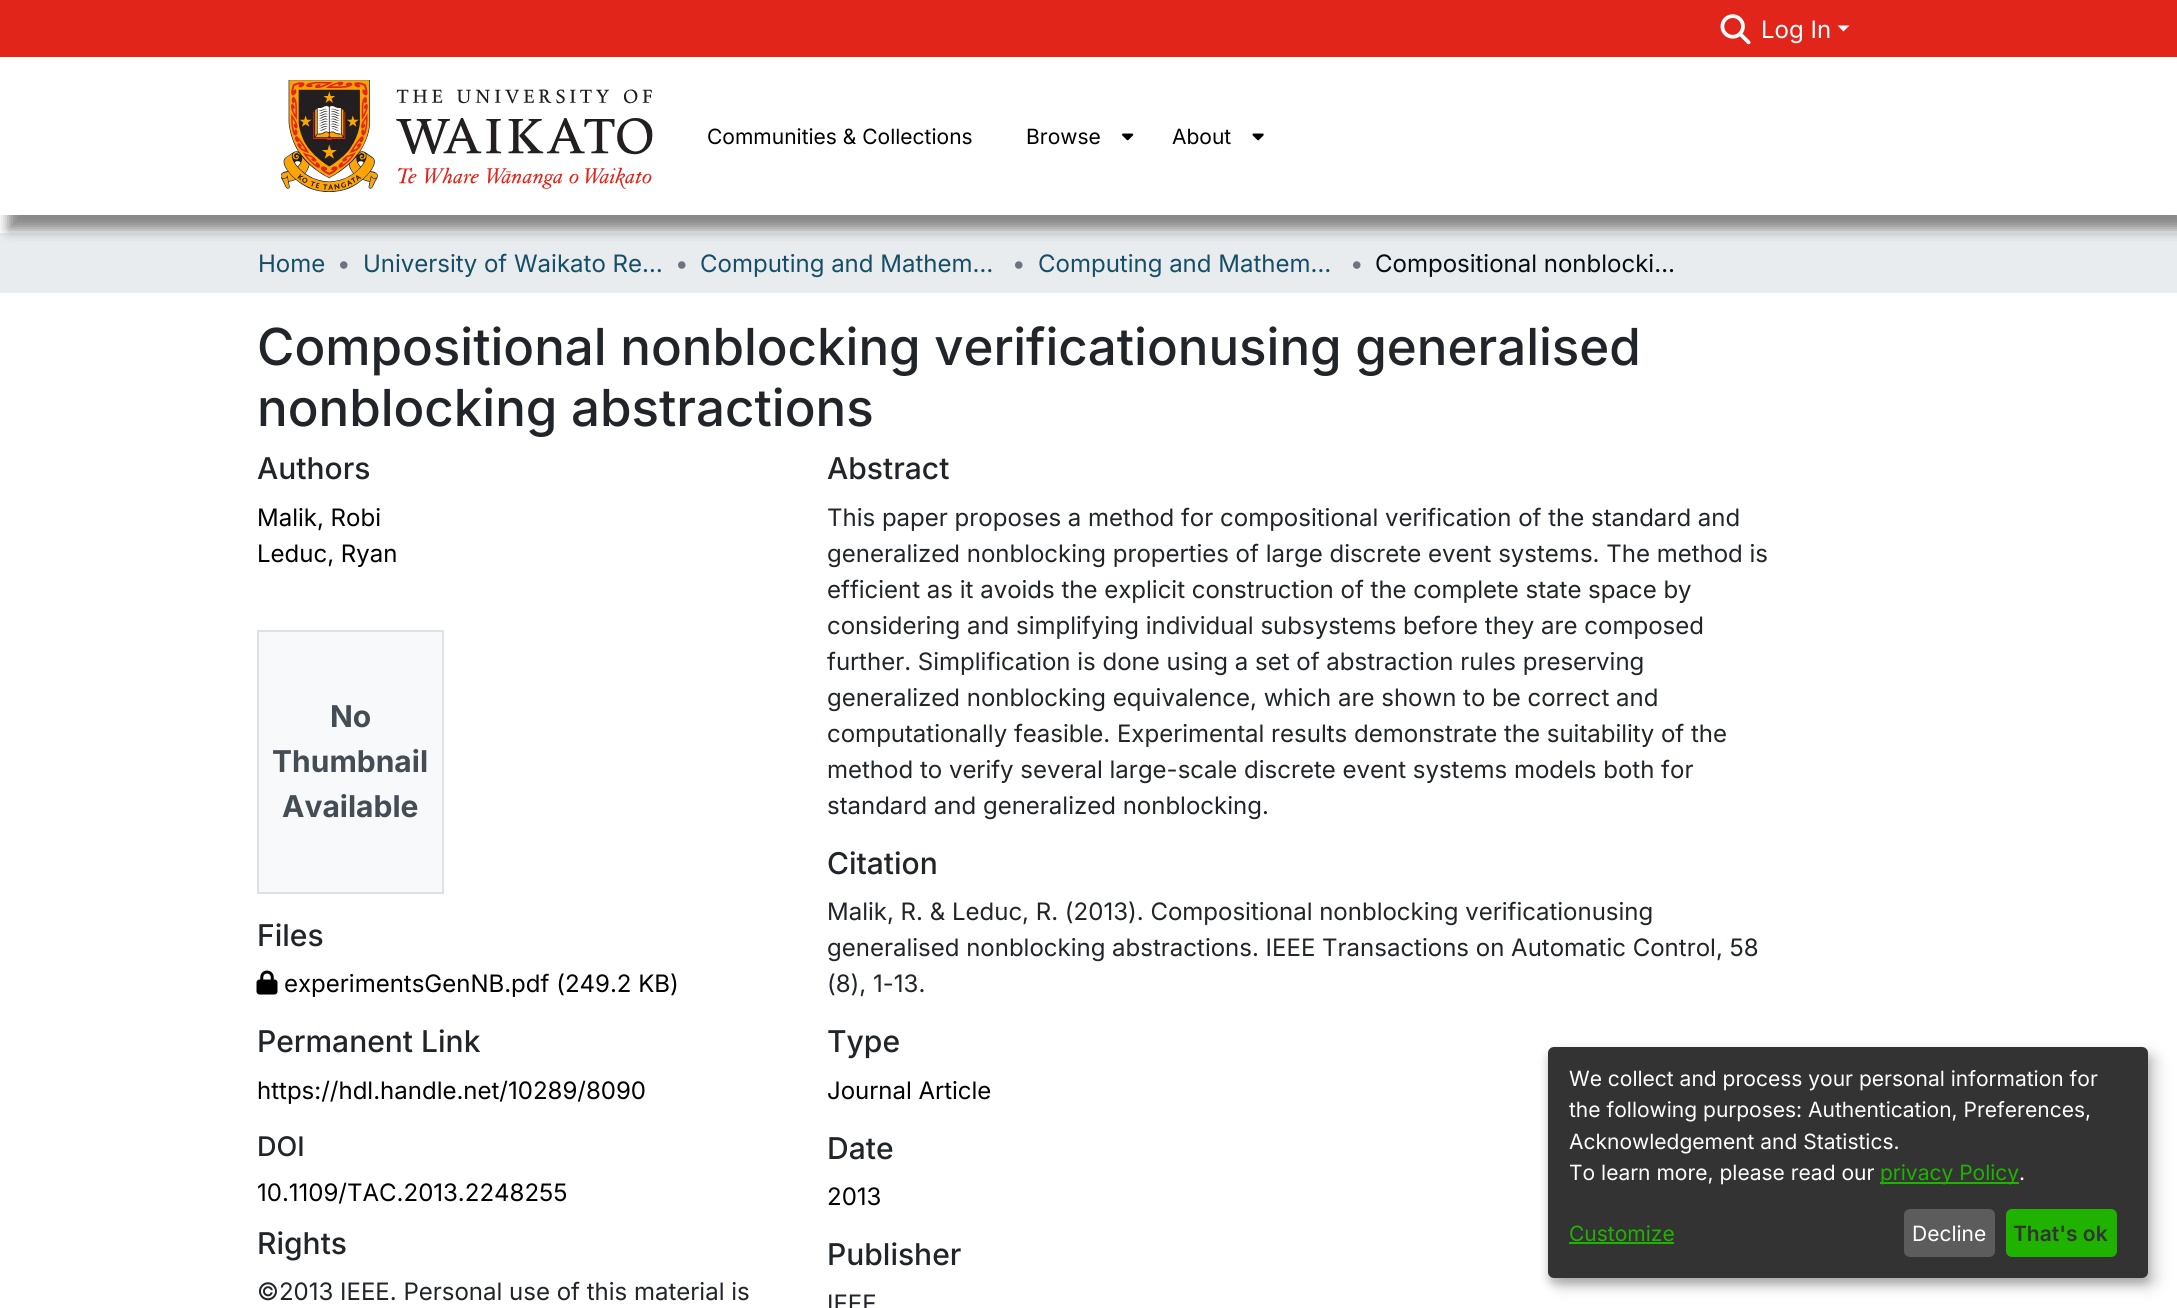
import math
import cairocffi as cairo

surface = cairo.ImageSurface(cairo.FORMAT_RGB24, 2177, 1308)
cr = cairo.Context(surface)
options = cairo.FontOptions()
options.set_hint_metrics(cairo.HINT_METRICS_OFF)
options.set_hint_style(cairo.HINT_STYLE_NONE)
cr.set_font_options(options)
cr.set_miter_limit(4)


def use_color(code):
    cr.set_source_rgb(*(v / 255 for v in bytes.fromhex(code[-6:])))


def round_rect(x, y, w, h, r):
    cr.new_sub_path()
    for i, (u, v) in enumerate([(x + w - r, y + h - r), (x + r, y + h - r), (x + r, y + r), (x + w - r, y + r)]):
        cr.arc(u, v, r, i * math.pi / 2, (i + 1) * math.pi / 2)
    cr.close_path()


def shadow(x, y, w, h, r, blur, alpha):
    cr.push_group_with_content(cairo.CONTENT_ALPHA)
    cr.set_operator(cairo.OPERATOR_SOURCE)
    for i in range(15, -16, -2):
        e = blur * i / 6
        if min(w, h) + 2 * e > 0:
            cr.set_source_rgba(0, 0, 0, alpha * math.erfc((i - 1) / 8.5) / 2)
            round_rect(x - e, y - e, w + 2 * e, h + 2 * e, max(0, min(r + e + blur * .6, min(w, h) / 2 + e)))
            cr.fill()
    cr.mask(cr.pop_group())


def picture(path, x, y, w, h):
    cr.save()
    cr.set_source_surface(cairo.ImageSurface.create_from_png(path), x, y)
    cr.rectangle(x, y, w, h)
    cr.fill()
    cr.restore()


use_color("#ffffff")
cr.paint()
use_color("#e9ecef")
cr.rectangle(0, 233, 2177, 60)
cr.fill()
cr.save()
cr.set_fill_rule(cairo.FILL_RULE_EVEN_ODD)
cr.new_path()
cr.move_to(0, 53)
cr.line_to(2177, 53)
cr.line_to(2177, 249)
cr.line_to(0, 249)
cr.close_path()
cr.move_to(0, 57)
cr.line_to(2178, 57)
cr.line_to(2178, 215)
cr.line_to(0, 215)
cr.close_path()
cr.clip()
use_color("#888888")
shadow(8, 72, 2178, 158, 0, 6, 1)
cr.restore()
use_color("#e1251b")
cr.rectangle(0, 0, 2177, 57)
cr.fill()
picture("img1.png", 1720, 14, 31, 31)
cr.select_font_face("Inter")
cr.set_font_size(24)
use_color("#ffffff")
cr.move_to(1761, 38)
cr.show_text("Log In")
cr.new_path()
cr.move_to(1837.5, 25.5)
cr.line_to(1849.5, 25.5)
cr.line_to(1843.5, 31.5)
cr.close_path()
cr.fill()
picture("img2.png", 281, 80, 372, 112)
cr.set_font_size(21)
use_color("#000000")
cr.move_to(707, 144)
cr.show_text("Communities & Collections")
cr.move_to(1026, 144)
cr.show_text("Browse")
picture("img3.png", 1122, 133, 12, 8)
cr.move_to(1172, 144)
cr.show_text("About")
picture("img4.png", 1252, 133, 12, 8)
cr.set_font_size(24)
use_color("#154e66")
cr.move_to(258, 272)
cr.show_text("Home")
use_color("#6c757d")
cr.move_to(337, 272)
cr.show_text("•")
use_color("#154e66")
cr.move_to(363, 272)
cr.show_text("University of Waikato Re…")
use_color("#6c757d")
cr.move_to(675, 272)
cr.show_text("•")
use_color("#154e66")
cr.move_to(700, 272)
cr.show_text("Computing and Mathem…")
use_color("#6c757d")
cr.move_to(1012, 272)
cr.show_text("•")
use_color("#154e66")
cr.move_to(1038, 272)
cr.show_text("Computing and Mathem…")
use_color("#6c757d")
cr.move_to(1350, 272)
cr.show_text("•")
use_color("#040d11")
cr.move_to(1375, 272)
cr.show_text("Compositional nonblocki…")
cr.select_font_face("Inter Medium")
cr.set_font_size(51)
use_color("#212529")
cr.move_to(257, 365)
cr.show_text("Compositional nonblocking verificationusing generalised")
cr.move_to(257, 426)
cr.show_text("nonblocking abstractions")
cr.set_font_size(30)
cr.move_to(257, 479)
cr.show_text("Authors")
cr.select_font_face("Inter")
cr.set_font_size(24)
use_color("#000000")
cr.move_to(257, 526)
cr.show_text("Malik, Robi")
cr.move_to(257, 562)
cr.show_text("Leduc, Ryan")
use_color("#f8f9fa")
cr.rectangle(258, 631, 185, 262)
cr.fill_preserve()
use_color("#dee2e6")
cr.stroke()
cr.select_font_face("Inter", cairo.FONT_SLANT_NORMAL, cairo.FONT_WEIGHT_BOLD)
cr.set_font_size(30)
use_color("#444c54")
cr.move_to(330, 727)
cr.show_text("No")
cr.move_to(272, 772)
cr.show_text("Thumbnail")
cr.move_to(282, 817)
cr.show_text("Available")
cr.select_font_face("Inter Medium")
use_color("#212529")
cr.move_to(257, 946)
cr.show_text("Files")
picture("img5.png", 256, 970, 22, 25)
cr.select_font_face("Inter")
cr.set_font_size(24)
use_color("#000000")
cr.move_to(284, 992)
cr.show_text("experimentsGenNB.pdf (249.2 KB)")
cr.select_font_face("Inter Medium")
cr.set_font_size(30)
use_color("#212529")
cr.move_to(257, 1052)
cr.show_text("Permanent Link")
cr.select_font_face("Inter")
cr.set_font_size(24)
use_color("#000000")
cr.move_to(257, 1099)
cr.show_text("https://hdl.handle.net/10289/8090")
cr.select_font_face("Inter Medium")
cr.set_font_size(27)
use_color("#212529")
cr.move_to(257, 1156)
cr.show_text("DOI")
cr.select_font_face("Inter")
cr.set_font_size(24)
use_color("#000000")
cr.move_to(257, 1201)
cr.show_text("10.1109/TAC.2013.2248255")
cr.select_font_face("Inter Medium")
cr.set_font_size(30)
use_color("#212529")
cr.move_to(257, 1254)
cr.show_text("Rights")
cr.select_font_face("Inter")
cr.set_font_size(24)
cr.move_to(257, 1300)
cr.show_text("©2013 IEEE. Personal use of this material is")
cr.select_font_face("Inter Medium")
cr.set_font_size(30)
cr.move_to(827, 479)
cr.show_text("Abstract")
cr.select_font_face("Inter")
cr.set_font_size(24)
cr.move_to(827, 526)
cr.show_text("This paper proposes a method for compositional verification of the standard and")
cr.move_to(827, 562)
cr.show_text("generalized nonblocking properties of large discrete event systems. The method is")
cr.move_to(827, 598)
cr.show_text("efficient as it avoids the explicit construction of the complete state space by")
cr.move_to(827, 634)
cr.show_text("considering and simplifying individual subsystems before they are composed")
cr.move_to(827, 670)
cr.show_text("further. Simplification is done using a set of abstraction rules preserving")
cr.move_to(827, 706)
cr.show_text("generalized nonblocking equivalence, which are shown to be correct and")
cr.move_to(827, 742)
cr.show_text("computationally feasible. Experimental results demonstrate the suitability of the")
cr.move_to(827, 778)
cr.show_text("method to verify several large-scale discrete event systems models both for")
cr.move_to(827, 814)
cr.show_text("standard and generalized nonblocking.")
cr.select_font_face("Inter Medium")
cr.set_font_size(30)
cr.move_to(827, 874)
cr.show_text("Citation")
cr.select_font_face("Inter")
cr.set_font_size(24)
cr.move_to(827, 920)
cr.show_text("Malik, R. & Leduc, R. (2013). Compositional nonblocking verificationusing")
cr.move_to(827, 956)
cr.show_text("generalised nonblocking abstractions. IEEE Transactions on Automatic Control, 58")
cr.move_to(827, 992)
cr.show_text("(8), 1-13.")
cr.select_font_face("Inter Medium")
cr.set_font_size(30)
cr.move_to(827, 1052)
cr.show_text("Type")
cr.select_font_face("Inter")
cr.set_font_size(24)
use_color("#000000")
cr.move_to(827, 1099)
cr.show_text("Journal Article")
cr.select_font_face("Inter Medium")
cr.set_font_size(30)
use_color("#212529")
cr.move_to(827, 1159)
cr.show_text("Date")
cr.select_font_face("Inter")
cr.set_font_size(24)
use_color("#000000")
cr.move_to(827, 1205)
cr.show_text("2013")
cr.select_font_face("Inter Medium")
cr.set_font_size(30)
use_color("#212529")
cr.move_to(827, 1265)
cr.show_text("Publisher")
cr.select_font_face("Inter")
cr.set_font_size(24)
cr.move_to(827, 1312)
cr.show_text("IEEE")
use_color("#000000")
shadow(1556, 1055, 600, 231, 6, 7.5, 0.19)
shadow(1548, 1053, 600, 231, 6, 4.5, 0.2)
use_color("#333333")
round_rect(1548, 1047, 600, 231, 6)
cr.fill()
cr.set_font_size(21)
use_color("#ffffff")
cr.move_to(1569, 1086)
cr.show_text("We collect and process your personal information for")
cr.move_to(1569, 1117)
cr.show_text("the following purposes: Authentication, Preferences,")
cr.move_to(1569, 1149)
cr.show_text("Acknowledgement and Statistics.")
cr.move_to(1569, 1180)
cr.show_text("To learn more, please read our")
use_color("#1fb300")
cr.rectangle(1880, 1182, 139, 2)
cr.fill()
cr.move_to(1880, 1180)
cr.show_text("privacy Policy")
use_color("#ffffff")
cr.move_to(2019, 1180)
cr.show_text(".")
use_color("#1fb300")
cr.move_to(1569, 1241)
cr.show_text("Customize")
cr.rectangle(1569, 1242, 105, 2)
cr.fill()
use_color("#5c5c5c")
round_rect(1904, 1209, 91, 48, 6)
cr.fill()
use_color("#ffffff")
cr.move_to(1912, 1241)
cr.show_text("Decline")
use_color("#1fb300")
round_rect(2006, 1209, 111, 48, 6)
cr.fill()
cr.select_font_face("Inter SemiBold")
use_color("#333333")
cr.move_to(2013, 1241)
cr.show_text("That's ok")
surface.write_to_png("result.png")
